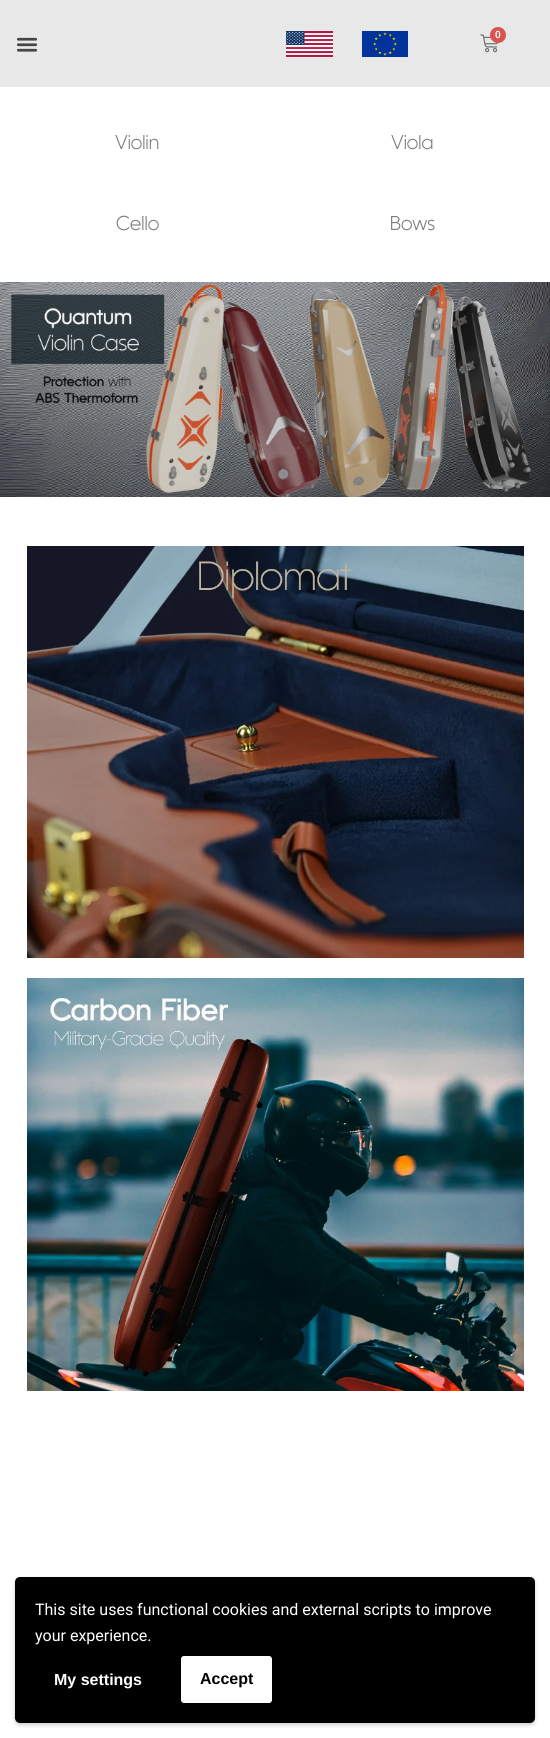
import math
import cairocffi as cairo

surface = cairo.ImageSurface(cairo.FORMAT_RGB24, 550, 1738)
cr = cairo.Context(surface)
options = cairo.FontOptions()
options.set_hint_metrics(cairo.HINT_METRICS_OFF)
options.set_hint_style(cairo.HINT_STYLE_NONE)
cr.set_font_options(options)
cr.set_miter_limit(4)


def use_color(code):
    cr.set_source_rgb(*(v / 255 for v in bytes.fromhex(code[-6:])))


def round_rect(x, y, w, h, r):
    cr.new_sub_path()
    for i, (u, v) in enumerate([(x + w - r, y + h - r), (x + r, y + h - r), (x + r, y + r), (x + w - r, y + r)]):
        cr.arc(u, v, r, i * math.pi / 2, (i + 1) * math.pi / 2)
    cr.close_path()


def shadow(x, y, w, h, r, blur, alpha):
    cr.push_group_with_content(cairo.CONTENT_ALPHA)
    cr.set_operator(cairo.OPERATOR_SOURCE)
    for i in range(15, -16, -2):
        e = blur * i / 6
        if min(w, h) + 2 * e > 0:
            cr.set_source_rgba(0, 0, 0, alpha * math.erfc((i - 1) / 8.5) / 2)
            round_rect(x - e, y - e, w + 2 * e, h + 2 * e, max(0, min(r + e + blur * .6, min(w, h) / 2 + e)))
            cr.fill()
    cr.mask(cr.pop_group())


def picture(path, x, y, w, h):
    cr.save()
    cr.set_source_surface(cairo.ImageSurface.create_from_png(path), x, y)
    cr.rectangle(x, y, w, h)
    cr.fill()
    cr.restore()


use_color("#ffffff")
cr.paint()
use_color("#e8e8e8")
cr.rectangle(0, 0, 550, 87)
cr.fill()
picture("img1.png", 16, 37, 22, 15)
picture("img2.png", 286, 31, 47, 26)
picture("img3.png", 362, 31, 46, 26)
picture("img4.png", 480, 34, 19, 19)
use_color("#d9534f")
cr.arc(498, 35, 8, 0, 2 * math.pi)
cr.fill()
cr.select_font_face("Roboto SemiBold")
cr.set_font_size(10)
use_color("#ffffff")
cr.move_to(495, 38)
cr.show_text("0")
cr.select_font_face("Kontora")
cr.set_font_size(20)
use_color("#7a7a7a")
cr.move_to(115, 149)
cr.show_text("Violin")
cr.move_to(391, 149)
cr.show_text("Viola")
cr.move_to(116, 230)
cr.show_text("Cello")
cr.move_to(390, 230)
cr.show_text("Bows")
picture("img5.png", 0, 282, 550, 215)
picture("img6.png", 27, 546, 497, 412)
picture("img7.png", 27, 978, 497, 413)
use_color("#000000")
shadow(15, 1579, 520, 146, 5, 2, 0.2)
use_color("#000000")
round_rect(15, 1577, 520, 146, 5)
cr.fill()
cr.select_font_face("Roboto")
cr.set_font_size(16)
use_color("#ffffff")
cr.move_to(35, 1615)
cr.show_text("This site uses functional cookies and external scripts to improve")
cr.move_to(35, 1641)
cr.show_text("your experience.")
cr.select_font_face("Liberation Sans", cairo.FONT_SLANT_NORMAL, cairo.FONT_WEIGHT_BOLD)
cr.move_to(54, 1685)
cr.show_text("My settings")
round_rect(181.5, 1656.5, 90, 46, 2.5)
cr.fill_preserve()
cr.set_line_width(1)
cr.stroke()
use_color("#000000")
cr.move_to(200, 1684)
cr.show_text("Accept")
surface.write_to_png("result.png")
